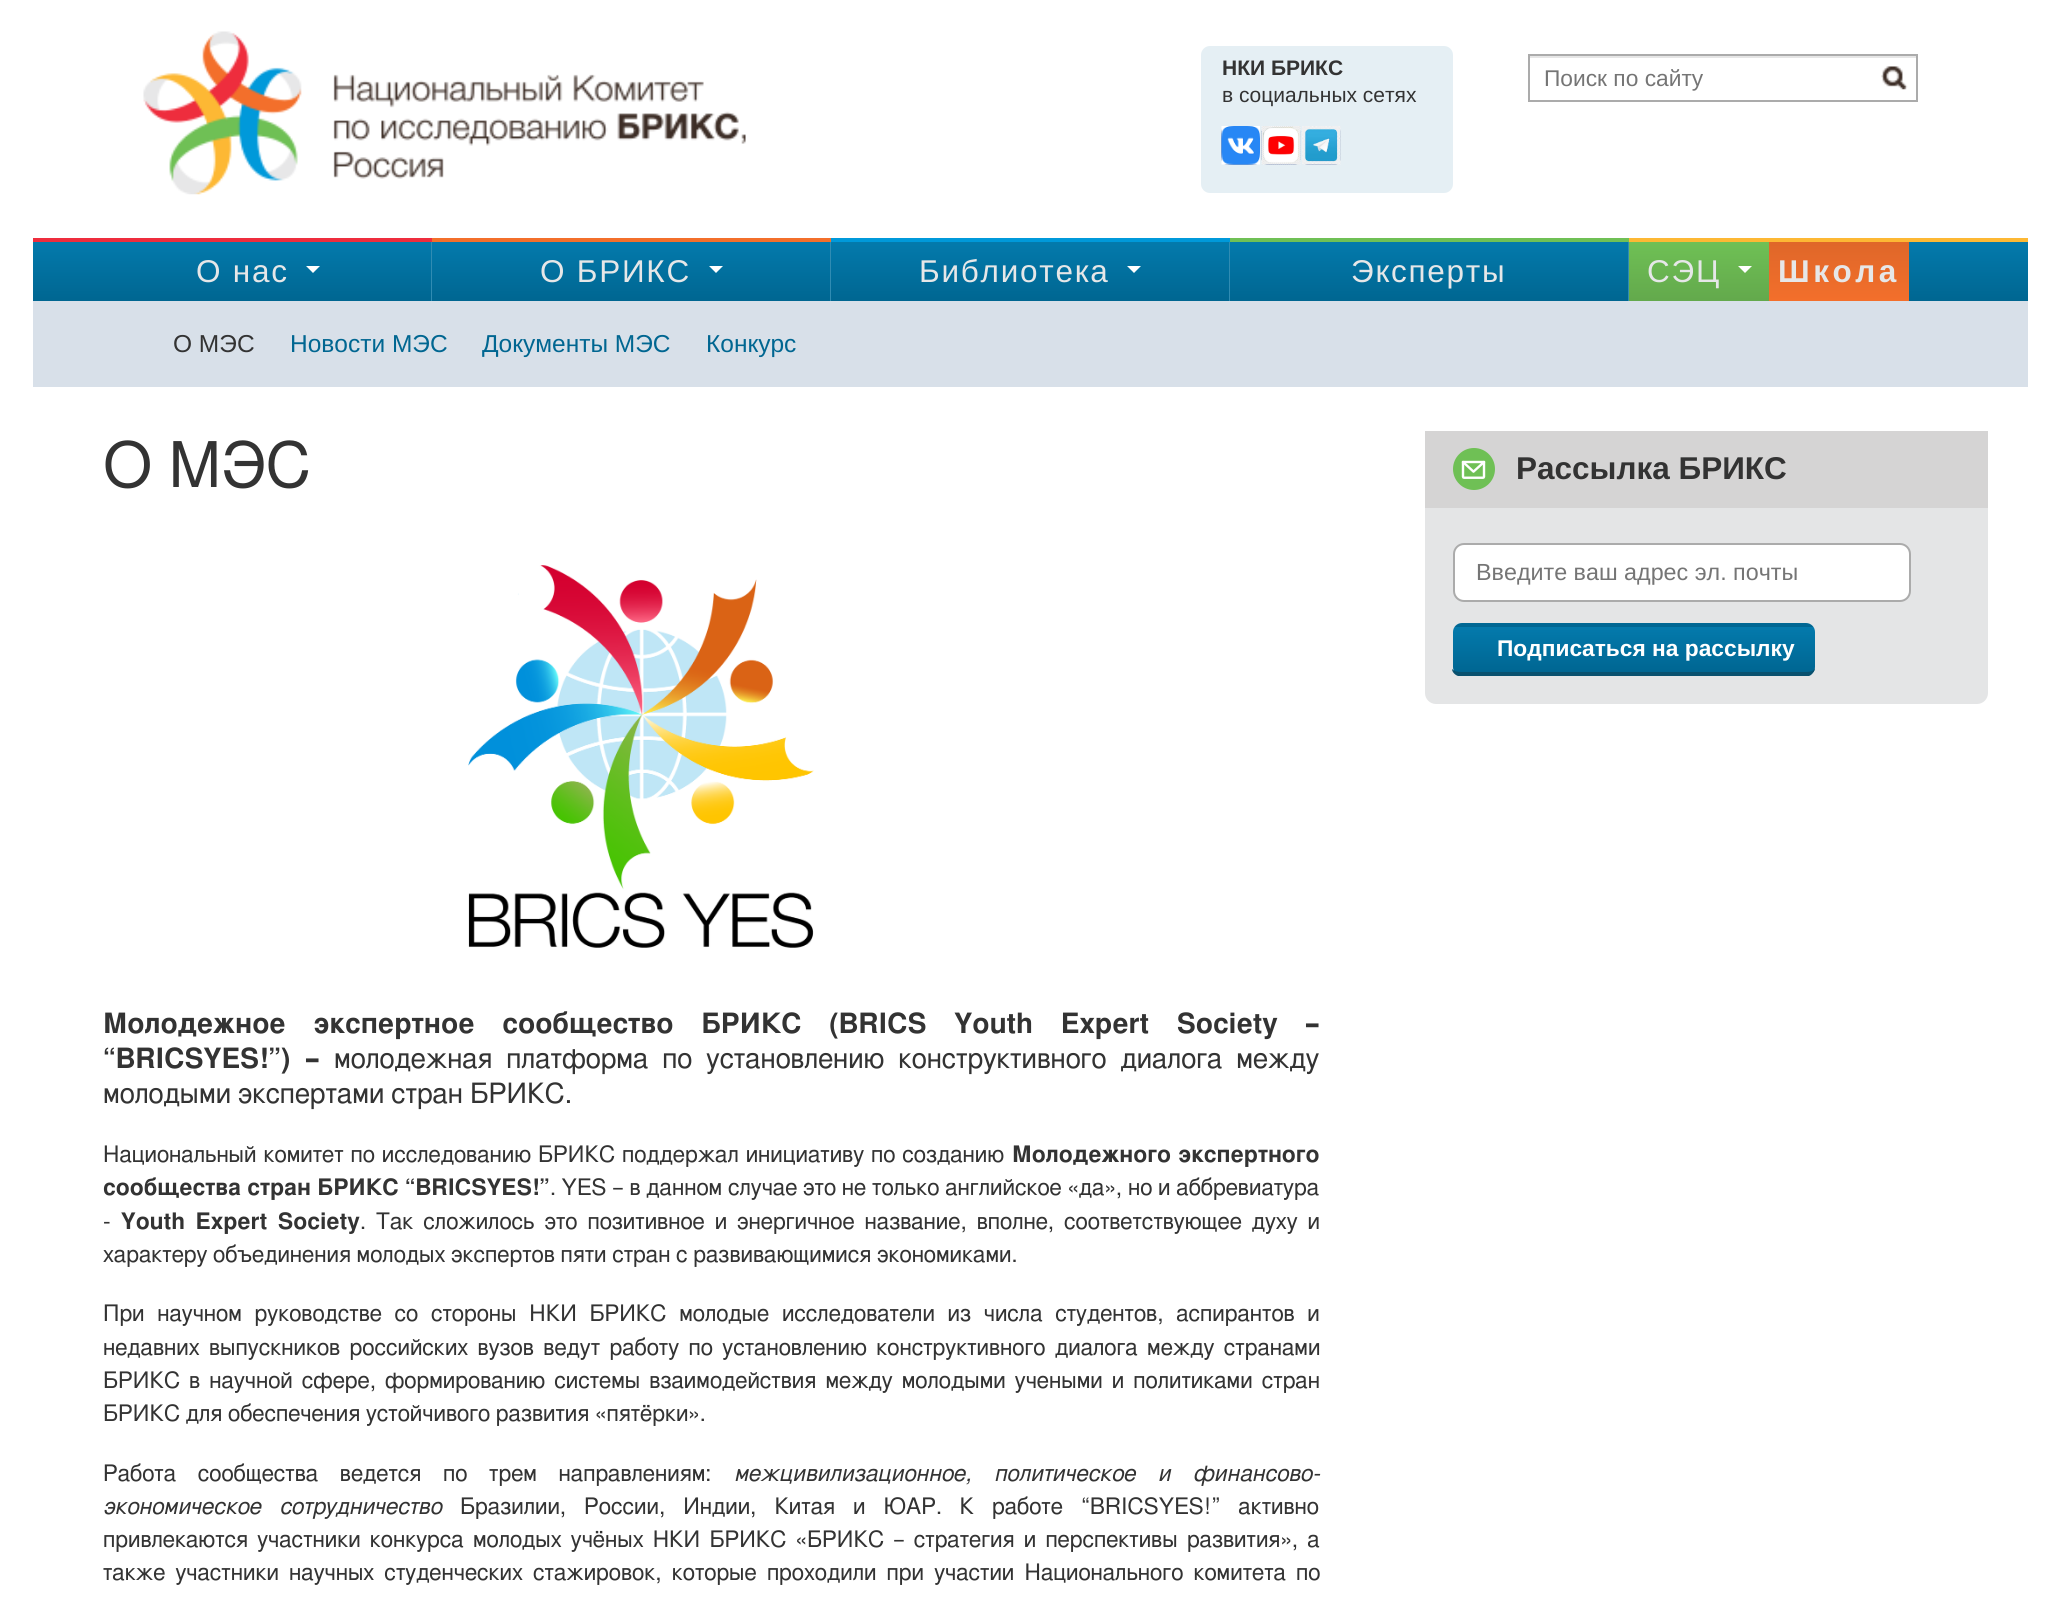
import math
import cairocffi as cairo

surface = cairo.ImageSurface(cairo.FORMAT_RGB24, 2060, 1600)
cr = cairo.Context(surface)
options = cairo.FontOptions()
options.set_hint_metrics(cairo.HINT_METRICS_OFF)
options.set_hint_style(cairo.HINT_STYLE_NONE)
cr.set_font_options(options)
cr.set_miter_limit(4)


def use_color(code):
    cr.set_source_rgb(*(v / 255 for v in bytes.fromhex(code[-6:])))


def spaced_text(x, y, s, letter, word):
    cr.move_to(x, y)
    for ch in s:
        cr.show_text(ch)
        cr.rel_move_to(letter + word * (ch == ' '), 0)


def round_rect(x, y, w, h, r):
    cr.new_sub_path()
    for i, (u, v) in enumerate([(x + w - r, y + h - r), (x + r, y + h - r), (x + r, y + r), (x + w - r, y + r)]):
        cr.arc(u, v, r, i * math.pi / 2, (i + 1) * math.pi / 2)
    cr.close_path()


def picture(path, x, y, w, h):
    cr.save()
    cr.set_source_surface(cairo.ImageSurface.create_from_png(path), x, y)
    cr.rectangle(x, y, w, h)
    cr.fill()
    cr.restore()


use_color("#ffffff")
cr.paint()
picture("img1.png", 143, 31, 603, 164)
use_color("#e5eff4")
round_rect(1201, 46, 252, 147, 9)
cr.fill()
cr.select_font_face("Liberation Sans", cairo.FONT_SLANT_NORMAL, cairo.FONT_WEIGHT_BOLD)
cr.set_font_size(21)
use_color("#333333")
cr.move_to(1222, 75)
cr.show_text("НКИ БРИКС")
cr.select_font_face("Liberation Sans")
cr.move_to(1222, 102)
cr.show_text("в социальных сетях")
picture("img2.png", 1221, 129, 36, 36)
picture("img3.png", 1221, 126, 39, 39)
picture("img4.png", 1261, 130, 40, 35)
picture("img5.png", 1261, 126, 40, 39)
picture("img6.png", 1301, 129, 40, 36)
picture("img7.png", 1302, 126, 39, 39)
use_color("#e6e6e6")
cr.rectangle(1530, 56, 386, 2)
cr.fill()
cr.rectangle(1529, 55, 388, 46)
use_color("#ababab")
cr.stroke()
cr.set_font_size(22.75)
use_color("#757575")
cr.move_to(1544, 86)
cr.show_text("Поиск по сайту")
picture("img8.png", 1881, 66, 27, 24)
gradient = cairo.LinearGradient(1030, 242, 1030, 301)
gradient.add_color_stop_rgba(0, 0.012, 0.478, 0.675, 1)
gradient.add_color_stop_rgba(1, 0, 0.4, 0.569, 1)
cr.set_source(gradient)
cr.rectangle(831, 242, 398, 59)
cr.fill()
use_color("#308cb3")
cr.rectangle(1229, 242, 1, 59)
cr.fill()
use_color("#0099da")
cr.rectangle(831, 238, 399, 4)
cr.fill()
cr.set_font_size(31.5)
use_color("#e6e7e8")
spaced_text(919, 282, "Библиотека", 1.75, 0)
use_color("#ffffff")
cr.new_path()
cr.move_to(1127, 266)
cr.line_to(1141, 266)
cr.line_to(1134, 273)
cr.close_path()
cr.fill()
gradient = cairo.LinearGradient(1969, 242, 1969, 301)
gradient.add_color_stop_rgba(0, 0.012, 0.478, 0.675, 1)
gradient.add_color_stop_rgba(1, 0, 0.4, 0.569, 1)
cr.set_source(gradient)
cr.rectangle(1909, 242, 119, 59)
cr.fill()
gradient = cairo.LinearGradient(1839, 242, 1839, 301)
gradient.add_color_stop_rgba(0, 0.875, 0.404, 0.161, 1)
gradient.add_color_stop_rgba(1, 0.953, 0.435, 0.169, 1)
cr.set_source(gradient)
cr.rectangle(1769, 242, 140, 59)
cr.fill()
cr.select_font_face("Liberation Sans", cairo.FONT_SLANT_NORMAL, cairo.FONT_WEIGHT_BOLD)
use_color("#e6e7e8")
spaced_text(1778, 282, "Школа", 3.5, 0)
use_color("#d8e0e9")
cr.rectangle(33, 301, 1995, 86)
cr.fill()
cr.select_font_face("Liberation Sans")
cr.set_font_size(24.5)
use_color("#333333")
cr.move_to(173, 352)
cr.show_text("О МЭС")
use_color("#006691")
cr.move_to(290, 352)
cr.show_text("Новости МЭС")
cr.move_to(482, 352)
cr.show_text("Документы МЭС")
cr.move_to(706, 352)
cr.show_text("Конкурс")
gradient = cairo.LinearGradient(232, 242, 232, 301)
gradient.add_color_stop_rgba(0, 0.012, 0.478, 0.675, 1)
gradient.add_color_stop_rgba(1, 0, 0.4, 0.569, 1)
cr.set_source(gradient)
cr.rectangle(33, 242, 398, 59)
cr.fill()
use_color("#308cb3")
cr.rectangle(431, 242, 1, 59)
cr.fill()
use_color("#ee2d3d")
cr.rectangle(33, 238, 399, 4)
cr.fill()
cr.set_font_size(31.5)
use_color("#e6e7e8")
spaced_text(196, 282, "О нас", 1.75, 0)
use_color("#ffffff")
cr.new_path()
cr.move_to(306, 266)
cr.line_to(320, 266)
cr.line_to(313, 273)
cr.close_path()
cr.fill()
gradient = cairo.LinearGradient(631, 242, 631, 301)
gradient.add_color_stop_rgba(0, 0.012, 0.478, 0.675, 1)
gradient.add_color_stop_rgba(1, 0, 0.4, 0.569, 1)
cr.set_source(gradient)
cr.rectangle(432, 242, 398, 59)
cr.fill()
use_color("#308cb3")
cr.rectangle(830, 242, 1, 59)
cr.fill()
use_color("#f36f2b")
cr.rectangle(432, 238, 399, 4)
cr.fill()
use_color("#e6e7e8")
spaced_text(540, 282, "О БРИКС", 1.75, 0)
use_color("#ffffff")
cr.new_path()
cr.move_to(709, 266)
cr.line_to(723, 266)
cr.line_to(716, 273)
cr.close_path()
cr.fill()
gradient = cairo.LinearGradient(1429, 242, 1429, 301)
gradient.add_color_stop_rgba(0, 0.012, 0.478, 0.675, 1)
gradient.add_color_stop_rgba(1, 0, 0.4, 0.569, 1)
cr.set_source(gradient)
cr.rectangle(1230, 242, 398, 59)
cr.fill()
use_color("#308cb3")
cr.rectangle(1628, 242, 1, 59)
cr.fill()
use_color("#6fc055")
cr.rectangle(1230, 238, 399, 4)
cr.fill()
use_color("#e6e7e8")
spaced_text(1351, 282, "Эксперты", 1.75, 0)
gradient = cairo.LinearGradient(1699, 242, 1699, 301)
gradient.add_color_stop_rgba(0, 0.435, 0.753, 0.333, 1)
gradient.add_color_stop_rgba(1, 0.388, 0.663, 0.298, 1)
cr.set_source(gradient)
cr.rectangle(1629, 242, 140, 59)
cr.fill()
use_color("#fdb834")
cr.rectangle(1629, 238, 399, 4)
cr.fill()
use_color("#e6e7e8")
spaced_text(1647, 282, "CЭЦ", 1.75, 0)
use_color("#ffffff")
cr.new_path()
cr.move_to(1738, 266)
cr.line_to(1752, 266)
cr.line_to(1745, 273)
cr.close_path()
cr.fill()
cr.select_font_face("FreeSans")
cr.set_font_size(63)
use_color("#333333")
cr.move_to(103, 487)
cr.show_text("О МЭС")
picture("img9.png", 468, 565, 346, 383)
cr.select_font_face("FreeSans SemiBold")
cr.set_font_size(28)
spaced_text(103, 1033, "Молодежное экспертное сообщество БРИКС (BRICS Youth Expert Society –", 0, 20)
spaced_text(103, 1068, "“BRICSYES!”) –", 0, 7)
cr.select_font_face("FreeSans")
spaced_text(334, 1068, "молодежная платформа по установлению конструктивного диалога между", 0, 7)
cr.move_to(103, 1103)
cr.show_text("молодыми экспертами стран БРИКС.")
cr.set_font_size(22.75)
spaced_text(103, 1162, "Национальный комитет по исследованию БРИКС поддержал инициативу по созданию", 0, 1.25)
cr.select_font_face("FreeSans SemiBold")
spaced_text(1012, 1162, "Молодежного экспертного", 0, 1)
cr.move_to(103, 1195)
cr.show_text("сообщества стран БРИКС “BRICSYES!”")
cr.select_font_face("FreeSans")
spaced_text(550, 1195, ". YES – в данном случае это не только английское «да», но и аббревиатура", 0, 0.1)
cr.move_to(103, 1229)
cr.show_text("-")
cr.select_font_face("FreeSans SemiBold")
spaced_text(121, 1229, "Youth Expert Society", 0, 4.25)
cr.select_font_face("FreeSans")
spaced_text(360, 1229, ". Так сложилось это позитивное и энергичное название, вполне, соответствующее духу и", 0, 4.25)
cr.move_to(103, 1262)
cr.show_text("характеру объединения молодых экспертов пяти стран с развивающимися экономиками.")
spaced_text(103, 1321, "При научном руководстве со стороны НКИ БРИКС молодые исследователи из числа студентов, аспирантов и", 0, 7)
spaced_text(103, 1355, "недавних выпускников российских вузов ведут работу по установлению конструктивного диалога между странами", 0, 3.75)
spaced_text(103, 1388, "БРИКС в научной сфере, формированию системы взаимодействия между молодыми учеными и политиками стран", 0, 3.4)
cr.move_to(103, 1421)
cr.show_text("БРИКС для обеспечения устойчивого развития «пятёрки».")
spaced_text(103, 1481, "Работа сообщества ведется по трем направлениям:", 0, 16)
cr.select_font_face("FreeSans", cairo.FONT_SLANT_ITALIC)
spaced_text(734, 1481, "межцивилизационное, политическое и финансово-", 0, 16)
spaced_text(103, 1514, "экономическое сотрудничество", 0, 12)
cr.select_font_face("FreeSans")
spaced_text(460, 1514, "Бразилии, России, Индии, Китая и ЮАР. К работе “BRICSYES!” активно", 0, 12.25)
spaced_text(103, 1547, "привлекаются участники конкурса молодых учёных НКИ БРИКС «БРИКС – стратегия и перспективы развития», а", 0, 3.5)
spaced_text(103, 1580, "также участники научных студенческих стажировок, которые проходили при участии Национального комитета по", 0, 4.5)
use_color("#e4e5e6")
round_rect(1425, 431, 563, 273, 11)
cr.fill()
use_color("#d5d4d4")
cr.rectangle(1425, 431, 563, 77)
cr.fill()
picture("img10.png", 1453, 448, 42, 42)
cr.select_font_face("Liberation Sans", cairo.FONT_SLANT_NORMAL, cairo.FONT_WEIGHT_BOLD)
cr.set_font_size(31.5)
use_color("#333333")
cr.move_to(1516, 479)
cr.show_text("Рассылка БРИКС")
use_color("#ffffff")
round_rect(1454, 544, 456, 57, 10)
cr.fill_preserve()
use_color("#ababab")
cr.stroke()
cr.select_font_face("Liberation Sans")
cr.set_font_size(23.3)
use_color("#757575")
cr.move_to(1476, 580)
cr.show_text("Введите ваш адрес эл. почты")
cr.save()
round_rect(1453, 623, 362, 53, 9)
cr.clip()
gradient = cairo.LinearGradient(1634, 581, 1634, 627)
gradient.add_color_stop_rgba(0, 0.012, 0.478, 0.675, 1)
gradient.add_color_stop_rgba(1, 0, 0.4, 0.573, 1)
cr.set_source(gradient)
cr.rectangle(1453, 623, 362, 4)
cr.fill()
gradient = cairo.LinearGradient(1634, 627, 1634, 672)
gradient.add_color_stop_rgba(0, 0.012, 0.478, 0.675, 1)
gradient.add_color_stop_rgba(1, 0, 0.4, 0.573, 1)
cr.set_source(gradient)
cr.rectangle(1453, 627, 362, 45)
cr.fill()
cr.restore()
use_color("#09516f")
cr.new_path()
cr.move_to(1458, 676)
cr.curve_to(1455, 675, 1452, 672, 1452, 669)
cr.curve_to(1454, 671, 1457, 672, 1461, 672)
cr.line_to(1806, 672)
cr.curve_to(1810, 672, 1814, 671, 1815, 668)
cr.curve_to(1815, 671, 1812, 675, 1809, 676)
cr.close_path()
cr.fill()
cr.select_font_face("Liberation Sans", cairo.FONT_SLANT_NORMAL, cairo.FONT_WEIGHT_BOLD)
cr.set_font_size(22.75)
use_color("#ffffff")
cr.move_to(1497, 656)
cr.show_text("Подписаться на рассылку")
surface.write_to_png("result.png")
